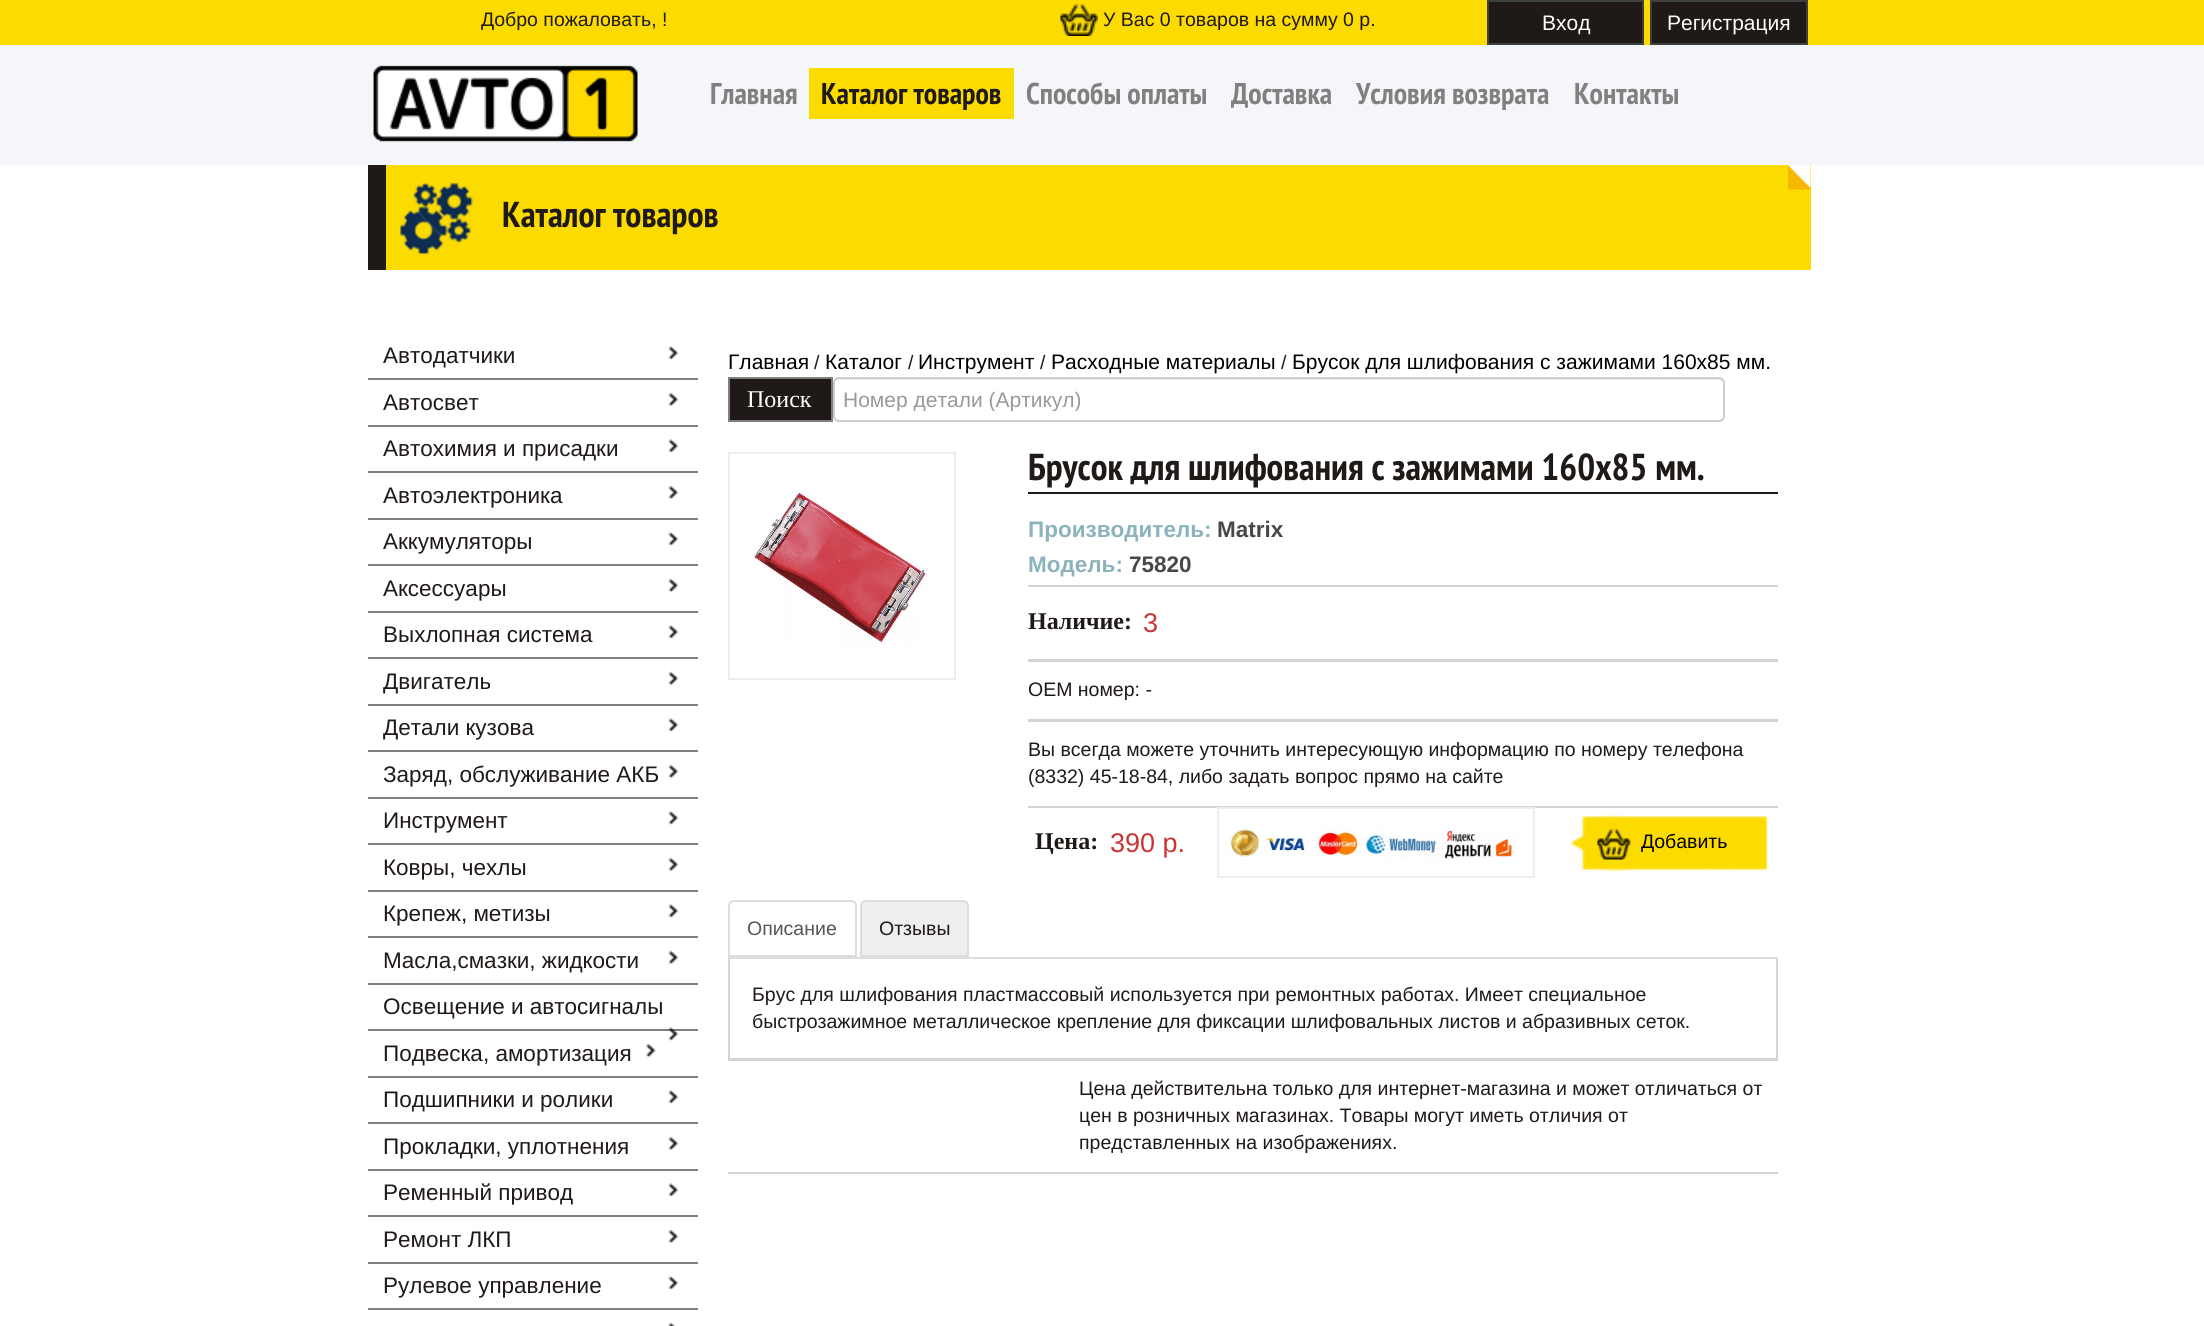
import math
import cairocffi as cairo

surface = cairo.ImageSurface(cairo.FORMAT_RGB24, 2204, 1326)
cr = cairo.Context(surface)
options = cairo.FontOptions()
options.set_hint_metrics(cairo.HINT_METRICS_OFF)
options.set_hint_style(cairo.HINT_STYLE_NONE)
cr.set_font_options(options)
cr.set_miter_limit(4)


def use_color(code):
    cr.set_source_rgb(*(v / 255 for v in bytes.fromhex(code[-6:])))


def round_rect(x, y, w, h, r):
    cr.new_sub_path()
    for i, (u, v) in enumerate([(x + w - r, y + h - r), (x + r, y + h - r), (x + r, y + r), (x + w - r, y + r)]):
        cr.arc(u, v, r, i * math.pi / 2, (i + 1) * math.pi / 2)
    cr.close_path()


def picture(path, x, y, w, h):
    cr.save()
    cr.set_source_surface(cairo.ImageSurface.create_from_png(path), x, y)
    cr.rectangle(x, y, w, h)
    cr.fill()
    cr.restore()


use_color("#ffffff")
cr.paint()
use_color("#fcdb00")
cr.rectangle(0, 0, 2204, 45)
cr.fill()
cr.select_font_face("Liberation Sans")
cr.set_font_size(19.5)
use_color("#1f1a17")
cr.move_to(481, 26)
cr.show_text("Добро пожаловать, !")
picture("img1.png", 1060, 4, 38, 32)
cr.move_to(1103, 26)
cr.show_text("У Вас 0 товаров на сумму 0 р.")
cr.rectangle(1488, 1, 155, 43)
cr.fill_preserve()
use_color("#3f4042")
cr.stroke()
cr.set_font_size(21)
use_color("#ffffff")
cr.move_to(1542, 30)
cr.show_text("Вход")
use_color("#1f1a17")
cr.rectangle(1651, 1, 156, 43)
cr.fill_preserve()
use_color("#3f4042")
cr.stroke()
use_color("#ffffff")
cr.move_to(1667, 30)
cr.show_text("Регистрация")
use_color("#f5f6fa")
cr.rectangle(0, 45, 2204, 120)
cr.fill()
picture("img2.png", 372, 65, 266, 77)
cr.select_font_face("PT Sans Narrow", cairo.FONT_SLANT_NORMAL, cairo.FONT_WEIGHT_BOLD)
cr.set_font_size(30)
use_color("#808080")
cr.move_to(710, 104)
cr.show_text("Главная")
use_color("#fcdb00")
cr.rectangle(809, 68, 205, 51)
cr.fill()
use_color("#1f1a17")
cr.move_to(821, 104)
cr.show_text("Каталог товаров")
use_color("#808080")
cr.move_to(1026, 104)
cr.show_text("Способы оплаты")
cr.move_to(1231, 104)
cr.show_text("Доставка")
cr.move_to(1356, 104)
cr.show_text("Условия возврата")
cr.move_to(1574, 104)
cr.show_text("Контакты")
use_color("#1f1a17")
cr.rectangle(368, 165, 18, 105)
cr.fill()
use_color("#fcdb00")
cr.rectangle(386, 165, 1425, 105)
cr.fill()
picture("img3.png", 1788, 165, 23, 25)
picture("img4.png", 400, 183, 73, 71)
cr.set_font_size(36)
use_color("#1f1a17")
cr.move_to(502, 227)
cr.show_text("Каталог товаров")
use_color("#808080")
cr.rectangle(368, 378, 330, 2)
cr.fill()
cr.select_font_face("Liberation Sans")
cr.set_font_size(22.5)
use_color("#1f1a17")
cr.move_to(383, 363)
cr.show_text("Автодатчики")
picture("img5.png", 668, 346, 11, 14)
use_color("#808080")
cr.rectangle(368, 425, 330, 2)
cr.fill()
use_color("#1f1a17")
cr.move_to(383, 410)
cr.show_text("Автосвет")
picture("img6.png", 668, 392, 11, 15)
use_color("#808080")
cr.rectangle(368, 471, 330, 2)
cr.fill()
use_color("#1f1a17")
cr.move_to(383, 456)
cr.show_text("Автохимия и присадки")
picture("img7.png", 668, 439, 11, 14)
use_color("#808080")
cr.rectangle(368, 518, 330, 2)
cr.fill()
use_color("#1f1a17")
cr.move_to(383, 503)
cr.show_text("Автоэлектроника")
picture("img8.png", 668, 485, 11, 15)
use_color("#808080")
cr.rectangle(368, 564, 330, 2)
cr.fill()
use_color("#1f1a17")
cr.move_to(383, 549)
cr.show_text("Аккумуляторы")
picture("img9.png", 668, 532, 11, 14)
use_color("#808080")
cr.rectangle(368, 611, 330, 2)
cr.fill()
use_color("#1f1a17")
cr.move_to(383, 596)
cr.show_text("Аксессуары")
picture("img10.png", 668, 578, 11, 15)
use_color("#808080")
cr.rectangle(368, 657, 330, 2)
cr.fill()
use_color("#1f1a17")
cr.move_to(383, 642)
cr.show_text("Выхлопная система")
picture("img9.png", 668, 625, 11, 14)
use_color("#808080")
cr.rectangle(368, 704, 330, 2)
cr.fill()
use_color("#1f1a17")
cr.move_to(383, 689)
cr.show_text("Двигатель")
picture("img11.png", 668, 671, 11, 15)
use_color("#808080")
cr.rectangle(368, 750, 330, 2)
cr.fill()
use_color("#1f1a17")
cr.move_to(383, 735)
cr.show_text("Детали кузова")
picture("img12.png", 668, 718, 11, 14)
use_color("#808080")
cr.rectangle(368, 797, 330, 2)
cr.fill()
use_color("#1f1a17")
cr.move_to(383, 782)
cr.show_text("Заряд, обслуживание АКБ")
picture("img13.png", 668, 764, 11, 15)
use_color("#808080")
cr.rectangle(368, 843, 330, 2)
cr.fill()
use_color("#1f1a17")
cr.move_to(383, 828)
cr.show_text("Инструмент")
picture("img14.png", 668, 811, 11, 14)
use_color("#808080")
cr.rectangle(368, 890, 330, 2)
cr.fill()
use_color("#1f1a17")
cr.move_to(383, 875)
cr.show_text("Ковры, чехлы")
picture("img15.png", 668, 857, 11, 15)
use_color("#808080")
cr.rectangle(368, 936, 330, 2)
cr.fill()
use_color("#1f1a17")
cr.move_to(383, 921)
cr.show_text("Крепеж, метизы")
picture("img16.png", 668, 904, 11, 14)
use_color("#808080")
cr.rectangle(368, 983, 330, 2)
cr.fill()
use_color("#1f1a17")
cr.move_to(383, 968)
cr.show_text("Масла,смазки, жидкости")
picture("img17.png", 668, 950, 11, 15)
use_color("#808080")
cr.rectangle(368, 1029, 330, 2)
cr.fill()
use_color("#1f1a17")
cr.move_to(383, 1014)
cr.show_text("Освещение и автоcигналы")
picture("img18.png", 668, 1027, 11, 14)
use_color("#808080")
cr.rectangle(368, 1076, 330, 2)
cr.fill()
use_color("#1f1a17")
cr.move_to(383, 1061)
cr.show_text("Подвеска, амортизация")
picture("img19.png", 646, 1043, 10, 15)
use_color("#808080")
cr.rectangle(368, 1122, 330, 2)
cr.fill()
use_color("#1f1a17")
cr.move_to(383, 1107)
cr.show_text("Подшипники и ролики")
picture("img20.png", 668, 1090, 11, 14)
use_color("#808080")
cr.rectangle(368, 1169, 330, 2)
cr.fill()
use_color("#1f1a17")
cr.move_to(383, 1154)
cr.show_text("Прокладки, уплотнения")
picture("img6.png", 668, 1136, 11, 15)
use_color("#808080")
cr.rectangle(368, 1215, 330, 2)
cr.fill()
use_color("#1f1a17")
cr.move_to(383, 1200)
cr.show_text("Ременный привод")
picture("img12.png", 668, 1183, 11, 14)
use_color("#808080")
cr.rectangle(368, 1262, 330, 2)
cr.fill()
use_color("#1f1a17")
cr.move_to(383, 1247)
cr.show_text("Ремонт ЛКП")
picture("img21.png", 668, 1229, 11, 15)
use_color("#808080")
cr.rectangle(368, 1308, 330, 2)
cr.fill()
use_color("#1f1a17")
cr.move_to(383, 1293)
cr.show_text("Рулевое управление")
picture("img22.png", 668, 1276, 11, 14)
picture("img23.png", 668, 1322, 8, 4)
cr.set_font_size(21)
use_color("#000000")
cr.move_to(728, 369)
cr.show_text("Главная")
cr.set_font_size(19.5)
use_color("#1f1a17")
cr.move_to(814, 369)
cr.show_text("/")
cr.set_font_size(21)
use_color("#000000")
cr.move_to(825, 369)
cr.show_text("Каталог")
cr.set_font_size(19.5)
use_color("#1f1a17")
cr.move_to(908, 369)
cr.show_text("/")
cr.set_font_size(21)
use_color("#000000")
cr.move_to(918, 369)
cr.show_text("Инструмент")
cr.set_font_size(19.5)
use_color("#1f1a17")
cr.move_to(1040, 369)
cr.show_text("/")
cr.set_font_size(21)
use_color("#000000")
cr.move_to(1051, 369)
cr.show_text("Расходные материалы")
cr.set_font_size(19.5)
use_color("#1f1a17")
cr.move_to(1281, 369)
cr.show_text("/")
cr.set_font_size(21)
use_color("#000000")
cr.move_to(1292, 369)
cr.show_text("Брусок для шлифования с зажимами 160х85 мм.")
use_color("#1f1a17")
cr.rectangle(729, 378, 103, 43)
cr.fill_preserve()
use_color("#808080")
cr.stroke()
cr.select_font_face("Liberation Serif")
cr.set_font_size(24)
use_color("#ffffff")
cr.move_to(747, 407)
cr.show_text("Поиск")
use_color("#ececec")
cr.new_path()
cr.move_to(838, 380)
cr.line_to(1719, 380)
cr.curve_to(1721, 380, 1724, 382, 1724, 384)
cr.line_to(1724, 383)
cr.curve_to(1724, 380, 1722, 378, 1719, 378)
cr.line_to(839, 378)
cr.curve_to(836, 378, 834, 380, 834, 383)
cr.line_to(834, 384)
cr.curve_to(834, 382, 836, 380, 838, 380)
cr.close_path()
cr.fill()
round_rect(834, 378, 890, 43, 5)
use_color("#cccccc")
cr.stroke()
cr.save()
cr.rectangle(843, 387, 872, 24)
cr.clip()
cr.select_font_face("Liberation Sans")
cr.set_font_size(21)
use_color("#999999")
cr.move_to(843, 407)
cr.show_text("Номер детали (Артикул)")
cr.restore()
cr.rectangle(729, 453, 226, 226)
use_color("#eeeeee")
cr.stroke()
picture("img24.png", 753, 491, 175, 154)
use_color("#1f1a17")
cr.rectangle(1028, 492, 750, 2)
cr.fill()
cr.select_font_face("PT Sans Narrow", cairo.FONT_SLANT_NORMAL, cairo.FONT_WEIGHT_BOLD)
cr.set_font_size(37.5)
cr.move_to(1028, 480)
cr.show_text("Брусок для шлифования с зажимами 160х85 мм.")
cr.select_font_face("Liberation Sans", cairo.FONT_SLANT_NORMAL, cairo.FONT_WEIGHT_BOLD)
cr.set_font_size(22.5)
use_color("#8bb3bb")
cr.move_to(1028, 537)
cr.show_text("Производитель:")
use_color("#49474a")
cr.move_to(1217, 537)
cr.show_text("Matrix")
use_color("#8bb3bb")
cr.move_to(1028, 572)
cr.show_text("Модель:")
use_color("#49474a")
cr.move_to(1129, 572)
cr.show_text("75820")
use_color("#d3d3d3")
cr.rectangle(1028, 585, 750, 2)
cr.fill()
cr.rectangle(1028, 659, 750, 3)
cr.fill()
cr.select_font_face("Liberation Serif", cairo.FONT_SLANT_NORMAL, cairo.FONT_WEIGHT_BOLD)
cr.set_font_size(24)
use_color("#1f1a17")
cr.move_to(1028, 629)
cr.show_text("Наличие:")
cr.select_font_face("Liberation Sans")
cr.set_font_size(27)
use_color("#cc3434")
cr.move_to(1143, 632)
cr.show_text("3")
cr.set_font_size(19.5)
use_color("#1f1a17")
cr.move_to(1028, 696)
cr.show_text("OEM номер: -")
use_color("#d3d3d3")
cr.rectangle(1028, 719, 750, 3)
cr.fill()
cr.rectangle(1028, 806, 750, 2)
cr.fill()
use_color("#1f1a17")
cr.move_to(1028, 756)
cr.show_text("Вы всегда можете уточнить интересующую информацию по номеру телефона")
cr.move_to(1028, 783)
cr.show_text("(8332) 45-18-84, либо задать вопрос прямо на сайте")
cr.select_font_face("Liberation Serif", cairo.FONT_SLANT_NORMAL, cairo.FONT_WEIGHT_BOLD)
cr.set_font_size(24)
cr.move_to(1035, 849)
cr.show_text("Цена:")
cr.select_font_face("Liberation Sans")
cr.set_font_size(27)
use_color("#cc3434")
cr.move_to(1110, 852)
cr.show_text("390 р.")
cr.rectangle(1218, 808, 316, 69)
use_color("#eeeeee")
cr.stroke()
picture("img25.png", 1226, 829, 292, 30)
picture("img26.png", 1570, 814, 199, 58)
picture("img27.png", 1597, 829, 34, 31)
cr.set_font_size(19.5)
use_color("#000000")
cr.move_to(1641, 848)
cr.show_text("Добавить")
use_color("#dddddd")
cr.rectangle(728, 957, 1050, 2)
cr.fill()
cr.new_path()
cr.move_to(734, 901)
cr.line_to(851, 901)
cr.curve_to(854, 901, 856, 903, 856, 906)
cr.line_to(856, 956)
cr.line_to(729, 956)
cr.line_to(729, 906)
cr.curve_to(729, 903, 731, 901, 734, 901)
cr.close_path()
cr.stroke()
use_color("#555555")
cr.move_to(747, 935)
cr.show_text("Описание")
use_color("#eeeeee")
cr.new_path()
cr.move_to(866, 901)
cr.line_to(963, 901)
cr.curve_to(966, 901, 968, 903, 968, 906)
cr.line_to(968, 956)
cr.line_to(861, 956)
cr.line_to(861, 906)
cr.curve_to(861, 903, 863, 901, 866, 901)
cr.close_path()
cr.fill_preserve()
use_color("#dddddd")
cr.stroke()
use_color("#1f1a17")
cr.move_to(879, 935)
cr.show_text("Отзывы")
use_color("#d3d3d3")
cr.rectangle(1776, 959, 2, 100)
cr.fill()
cr.rectangle(728, 1058, 1050, 3)
cr.fill()
cr.rectangle(728, 959, 2, 100)
cr.fill()
use_color("#1f1a17")
cr.move_to(752, 1001)
cr.show_text("Брус для шлифования пластмассовый используется при ремонтных работах. Имеет специальное")
cr.move_to(752, 1028)
cr.show_text("быстрозажимное металлическое крепление для фиксации шлифовальных листов и абразивных сеток.")
use_color("#d3d3d3")
cr.rectangle(728, 1172, 1050, 2)
cr.fill()
use_color("#1f1a17")
cr.move_to(1079, 1095)
cr.show_text("Цена действительна только для интернет-магазина и может отличаться от")
cr.move_to(1079, 1122)
cr.show_text("цен в розничных магазинах. Товары могут иметь отличия от")
cr.move_to(1079, 1149)
cr.show_text("представленных на изображениях.")
surface.write_to_png("result.png")
